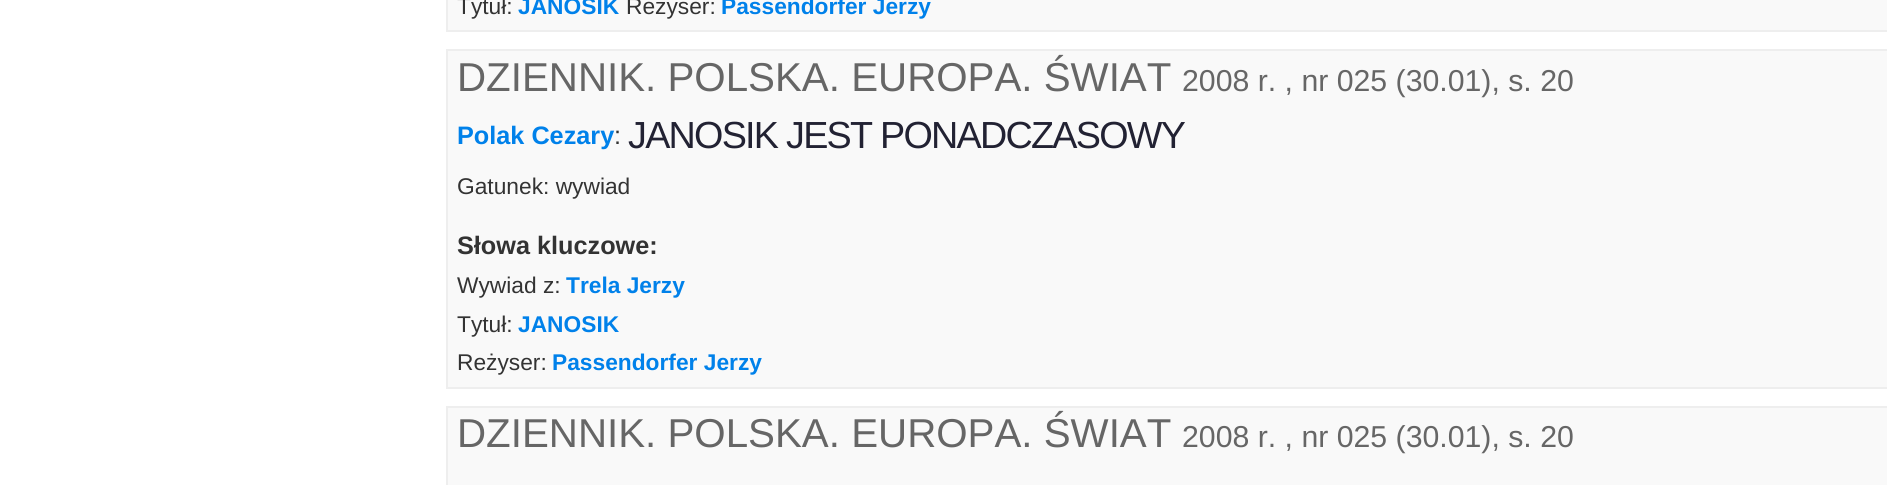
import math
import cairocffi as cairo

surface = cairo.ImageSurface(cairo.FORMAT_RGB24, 1904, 485)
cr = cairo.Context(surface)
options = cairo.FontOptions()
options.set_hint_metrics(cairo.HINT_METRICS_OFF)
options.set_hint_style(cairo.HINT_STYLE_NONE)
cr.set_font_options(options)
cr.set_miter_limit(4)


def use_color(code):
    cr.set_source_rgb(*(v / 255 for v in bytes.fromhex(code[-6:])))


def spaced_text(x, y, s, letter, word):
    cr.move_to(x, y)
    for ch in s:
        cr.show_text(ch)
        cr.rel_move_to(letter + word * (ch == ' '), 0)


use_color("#ffffff")
cr.paint()
use_color("#f9f9f9")
cr.rectangle(448, 0, 1439, 30)
cr.fill()
use_color("#eeeeee")
cr.rectangle(446, 30, 1441, 2)
cr.fill()
cr.rectangle(446, 0, 2, 32)
cr.fill()
cr.select_font_face("Liberation Sans")
cr.set_font_size(22.75)
use_color("#333333")
cr.move_to(457, 14)
cr.show_text("Tytuł:")
cr.select_font_face("Liberation Sans", cairo.FONT_SLANT_NORMAL, cairo.FONT_WEIGHT_BOLD)
use_color("#0081ea")
cr.move_to(518, 14)
cr.show_text("JANOSIK")
cr.select_font_face("Liberation Sans")
use_color("#333333")
cr.move_to(626, 14)
cr.show_text("Reżyser:")
cr.select_font_face("Liberation Sans", cairo.FONT_SLANT_NORMAL, cairo.FONT_WEIGHT_BOLD)
use_color("#0081ea")
cr.move_to(721, 14)
cr.show_text("Passendorfer Jerzy")
use_color("#f9f9f9")
cr.rectangle(448, 51, 1439, 336)
cr.fill()
use_color("#eeeeee")
cr.rectangle(446, 49, 1441, 2)
cr.fill()
cr.rectangle(446, 387, 1441, 2)
cr.fill()
cr.rectangle(446, 49, 2, 340)
cr.fill()
cr.select_font_face("Liberation Sans")
cr.set_font_size(40.3)
use_color("#666666")
cr.move_to(457, 91)
cr.show_text("DZIENNIK. POLSKA. EUROPA. ŚWIAT")
cr.set_font_size(30.25)
cr.move_to(1182, 91)
cr.show_text("2008 r. , nr 025 (30.01), s. 20")
cr.select_font_face("Liberation Sans", cairo.FONT_SLANT_NORMAL, cairo.FONT_WEIGHT_BOLD)
cr.set_font_size(25.25)
use_color("#0081ea")
cr.move_to(457, 144)
cr.show_text("Polak Cezary")
cr.select_font_face("Liberation Sans")
use_color("#333333")
cr.move_to(614, 144)
cr.show_text(":")
cr.set_font_size(37.75)
use_color("#222233")
spaced_text(628, 148, "JANOSIK JEST PONADCZASOWY", -1.75, 0)
cr.set_font_size(22.75)
use_color("#333333")
cr.move_to(457, 194)
cr.show_text("Gatunek: wywiad")
cr.select_font_face("Liberation Sans", cairo.FONT_SLANT_NORMAL, cairo.FONT_WEIGHT_BOLD)
cr.set_font_size(25.25)
cr.move_to(457, 254)
cr.show_text("Słowa kluczowe:")
cr.select_font_face("Liberation Sans")
cr.set_font_size(22.75)
cr.move_to(457, 293)
cr.show_text("Wywiad z:")
cr.select_font_face("Liberation Sans", cairo.FONT_SLANT_NORMAL, cairo.FONT_WEIGHT_BOLD)
use_color("#0081ea")
cr.move_to(566, 293)
cr.show_text("Trela Jerzy")
cr.select_font_face("Liberation Sans")
use_color("#333333")
cr.move_to(457, 332)
cr.show_text("Tytuł:")
cr.select_font_face("Liberation Sans", cairo.FONT_SLANT_NORMAL, cairo.FONT_WEIGHT_BOLD)
use_color("#0081ea")
cr.move_to(518, 332)
cr.show_text("JANOSIK")
cr.select_font_face("Liberation Sans")
use_color("#333333")
cr.move_to(457, 370)
cr.show_text("Reżyser:")
cr.select_font_face("Liberation Sans", cairo.FONT_SLANT_NORMAL, cairo.FONT_WEIGHT_BOLD)
use_color("#0081ea")
cr.move_to(552, 370)
cr.show_text("Passendorfer Jerzy")
use_color("#f9f9f9")
cr.rectangle(448, 408, 1439, 77)
cr.fill()
use_color("#eeeeee")
cr.rectangle(446, 406, 1441, 2)
cr.fill()
cr.rectangle(446, 406, 2, 79)
cr.fill()
cr.select_font_face("Liberation Sans")
cr.set_font_size(40.3)
use_color("#666666")
cr.move_to(457, 447)
cr.show_text("DZIENNIK. POLSKA. EUROPA. ŚWIAT")
cr.set_font_size(30.25)
cr.move_to(1182, 447)
cr.show_text("2008 r. , nr 025 (30.01), s. 20")
surface.write_to_png("result.png")
